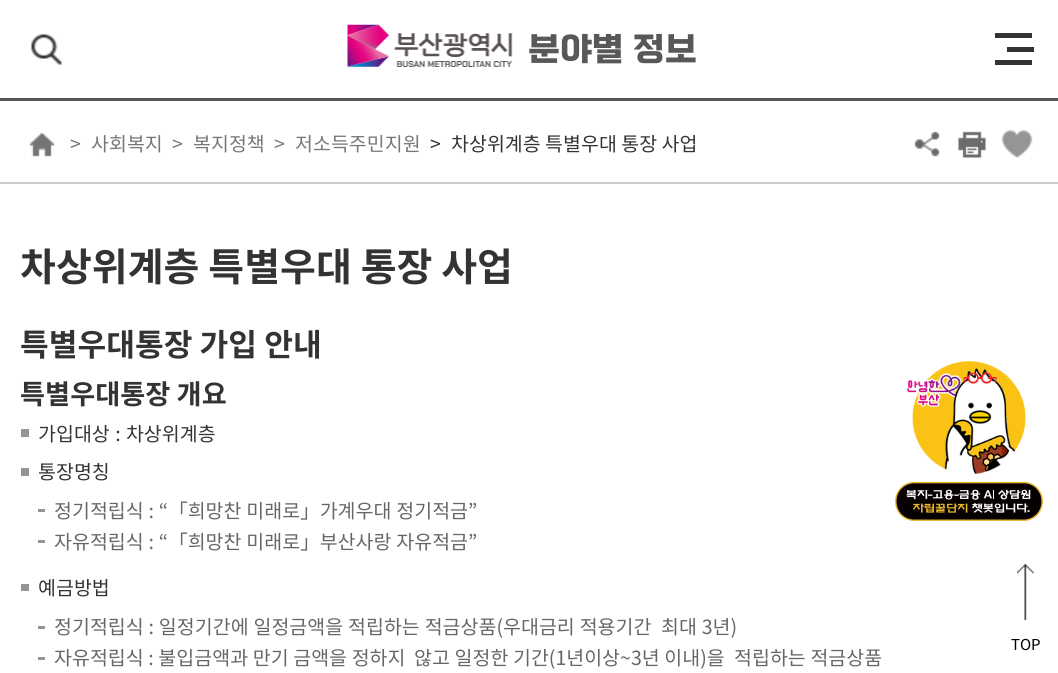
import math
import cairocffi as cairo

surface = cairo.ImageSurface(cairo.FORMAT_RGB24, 1058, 673)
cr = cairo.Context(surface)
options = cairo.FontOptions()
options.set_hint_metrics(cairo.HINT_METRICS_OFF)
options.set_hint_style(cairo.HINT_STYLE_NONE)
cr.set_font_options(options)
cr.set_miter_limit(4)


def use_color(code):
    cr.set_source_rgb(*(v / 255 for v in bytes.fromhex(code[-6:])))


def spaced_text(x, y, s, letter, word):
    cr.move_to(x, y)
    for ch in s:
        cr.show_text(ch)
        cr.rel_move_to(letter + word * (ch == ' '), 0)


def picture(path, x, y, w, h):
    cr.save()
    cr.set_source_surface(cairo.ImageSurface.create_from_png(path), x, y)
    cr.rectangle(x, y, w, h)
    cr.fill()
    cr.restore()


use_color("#ffffff")
cr.paint()
use_color("#333333")
cr.rectangle(995, 33, 37, 5)
cr.fill()
cr.rectangle(1007, 47, 27, 5)
cr.fill()
cr.rectangle(995, 60, 37, 5)
cr.fill()
use_color("#585858")
cr.rectangle(0, 98, 1058, 3)
cr.fill()
picture("img1.png", 31, 34, 31, 31)
picture("img2.png", 347, 24, 166, 43)
cr.select_font_face("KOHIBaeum")
cr.set_font_size(31.25)
cr.move_to(528, 58)
cr.show_text("분야별 정보")
use_color("#cccccc")
cr.rectangle(0, 182, 1058, 2)
cr.fill()
picture("img3.png", 29, 133, 26, 24)
cr.select_font_face("Noto Sans KR")
cr.set_font_size(19.5)
use_color("#777777")
cr.move_to(70, 151)
cr.show_text(">")
cr.move_to(91, 151)
cr.show_text("사회복지")
cr.move_to(172, 151)
cr.show_text(">")
cr.move_to(193, 151)
cr.show_text("복지정책")
cr.move_to(274, 151)
cr.show_text(">")
cr.move_to(295, 151)
cr.show_text("저소득주민지원")
use_color("#333333")
cr.move_to(430, 151)
cr.show_text(">")
cr.move_to(451, 151)
cr.show_text("차상위계층 특별우대 통장 사업")
picture("img4.png", 914, 131, 26, 26)
picture("img5.png", 958, 131, 28, 27)
picture("img6.png", 1001, 130, 32, 28)
cr.select_font_face("Noto Sans KR", cairo.FONT_SLANT_NORMAL, cairo.FONT_WEIGHT_BOLD)
cr.set_font_size(39)
cr.move_to(20, 281)
cr.show_text("차상위계층 특별우대 통장 사업")
cr.set_font_size(31.25)
cr.move_to(20, 356)
cr.show_text("특별우대통장 가입 안내")
cr.set_font_size(27.25)
cr.move_to(20, 404)
cr.show_text("특별우대통장 개요")
use_color("#949494")
cr.rectangle(21, 429, 8, 8)
cr.fill()
cr.select_font_face("Noto Sans KR")
cr.set_font_size(19.5)
use_color("#333333")
spaced_text(38, 441, "가입대상 : 차상위계층", 0, 1)
use_color("#949494")
cr.rectangle(21, 468, 8, 8)
cr.fill()
use_color("#333333")
cr.move_to(38, 479)
cr.show_text("통장명칭")
use_color("#949494")
cr.rectangle(38, 509, 7, 3)
cr.fill()
use_color("#666666")
spaced_text(54, 518, "정기적립식 : “「희망찬 미래로」가계우대 정기적금”", 0, 0.5)
use_color("#949494")
cr.rectangle(38, 540, 7, 3)
cr.fill()
use_color("#666666")
spaced_text(54, 549, "자유적립식 : “「희망찬 미래로」부산사랑 자유적금”", 0, 0.5)
use_color("#949494")
cr.rectangle(21, 584, 8, 7)
cr.fill()
use_color("#333333")
cr.move_to(38, 595)
cr.show_text("예금방법")
use_color("#949494")
cr.rectangle(38, 626, 7, 3)
cr.fill()
use_color("#666666")
spaced_text(54, 634, "정기적립식 : 일정기간에 일정금액을 적립하는 적금상품(우대금리 적용기간", 0, 0.5)
spaced_text(661, 634, "최대 3년)", 0, 0.5)
use_color("#949494")
cr.rectangle(38, 657, 7, 3)
cr.fill()
use_color("#666666")
spaced_text(54, 665, "자유적립식 : 불입금액과 만기 금액을 정하지", 0, 0.25)
spaced_text(414, 665, "않고 일정한 기간(1년이상~3년 이내)을", 0, 0.25)
spaced_text(734, 665, "적립하는 적금상품", 0, 0.25)
picture("img7.png", 907, 361, 119, 113)
picture("img8.png", 895, 481, 148, 40)
picture("img9.png", 1017, 564, 17, 56)
cr.set_font_size(15)
use_color("#000000")
cr.move_to(1011, 650)
cr.show_text("TOP")
surface.write_to_png("result.png")
